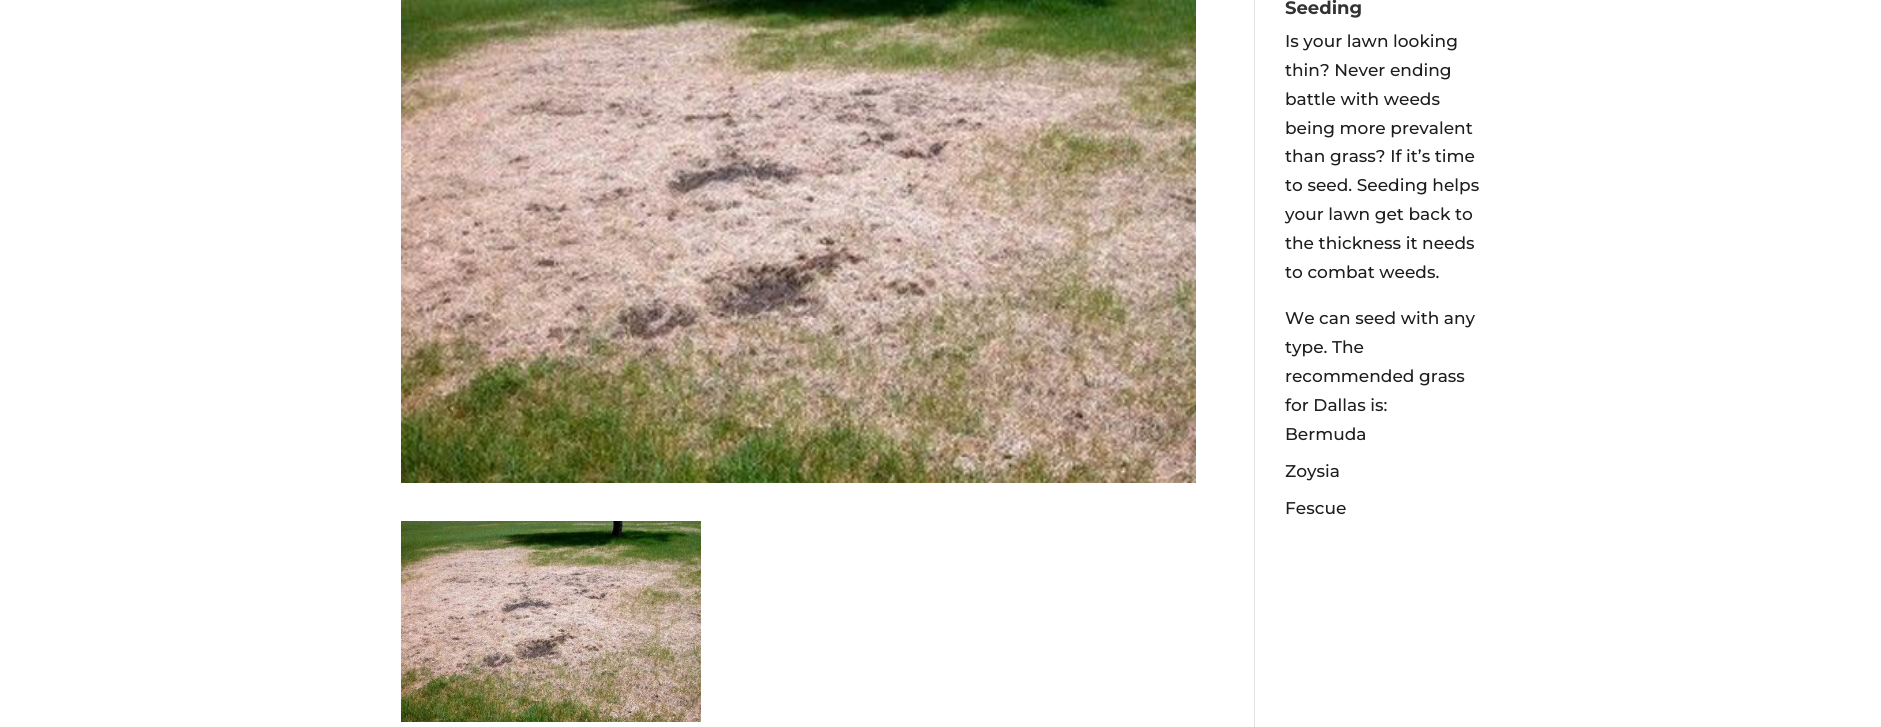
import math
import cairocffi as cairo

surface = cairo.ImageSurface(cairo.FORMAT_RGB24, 1881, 727)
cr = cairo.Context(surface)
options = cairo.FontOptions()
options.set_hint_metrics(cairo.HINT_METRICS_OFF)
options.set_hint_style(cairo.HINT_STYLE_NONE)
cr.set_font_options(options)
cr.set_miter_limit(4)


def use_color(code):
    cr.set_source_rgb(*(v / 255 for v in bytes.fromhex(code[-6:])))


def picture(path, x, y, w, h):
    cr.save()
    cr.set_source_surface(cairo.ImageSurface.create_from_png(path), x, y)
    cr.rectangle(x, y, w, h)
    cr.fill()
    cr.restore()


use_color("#ffffff")
cr.paint()
use_color("#e2e2e2")
cr.rectangle(1254, 0, 1, 727)
cr.fill()
picture("img1.png", 401, 0, 795, 483)
picture("img2.png", 401, 521, 300, 201)
cr.select_font_face("Montserrat Thin")
cr.set_font_size(18)
use_color("#333333")
cr.move_to(1285, 14)
cr.show_text("Seeding")
cr.select_font_face("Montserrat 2 Thin")
cr.set_font_size(17)
use_color("#1e1e1e")
cr.move_to(1285, 47)
cr.show_text("Is your lawn looking")
cr.move_to(1285, 76)
cr.show_text("thin? Never ending")
cr.move_to(1285, 105)
cr.show_text("battle with weeds")
cr.move_to(1285, 134)
cr.show_text("being more prevalent")
cr.move_to(1285, 162)
cr.show_text("than grass? If it’s time")
cr.move_to(1285, 191)
cr.show_text("to seed. Seeding helps")
cr.move_to(1285, 220)
cr.show_text("your lawn get back to")
cr.move_to(1285, 249)
cr.show_text("the thickness it needs")
cr.move_to(1285, 278)
cr.show_text("to combat weeds.")
cr.move_to(1285, 324)
cr.show_text("We can seed with any")
cr.move_to(1285, 353)
cr.show_text("type. The")
cr.move_to(1285, 382)
cr.show_text("recommended grass")
cr.move_to(1285, 411)
cr.show_text("for Dallas is:")
cr.move_to(1285, 440)
cr.show_text("Bermuda")
cr.move_to(1285, 477)
cr.show_text("Zoysia")
cr.move_to(1285, 514)
cr.show_text("Fescue")
surface.write_to_png("result.png")
